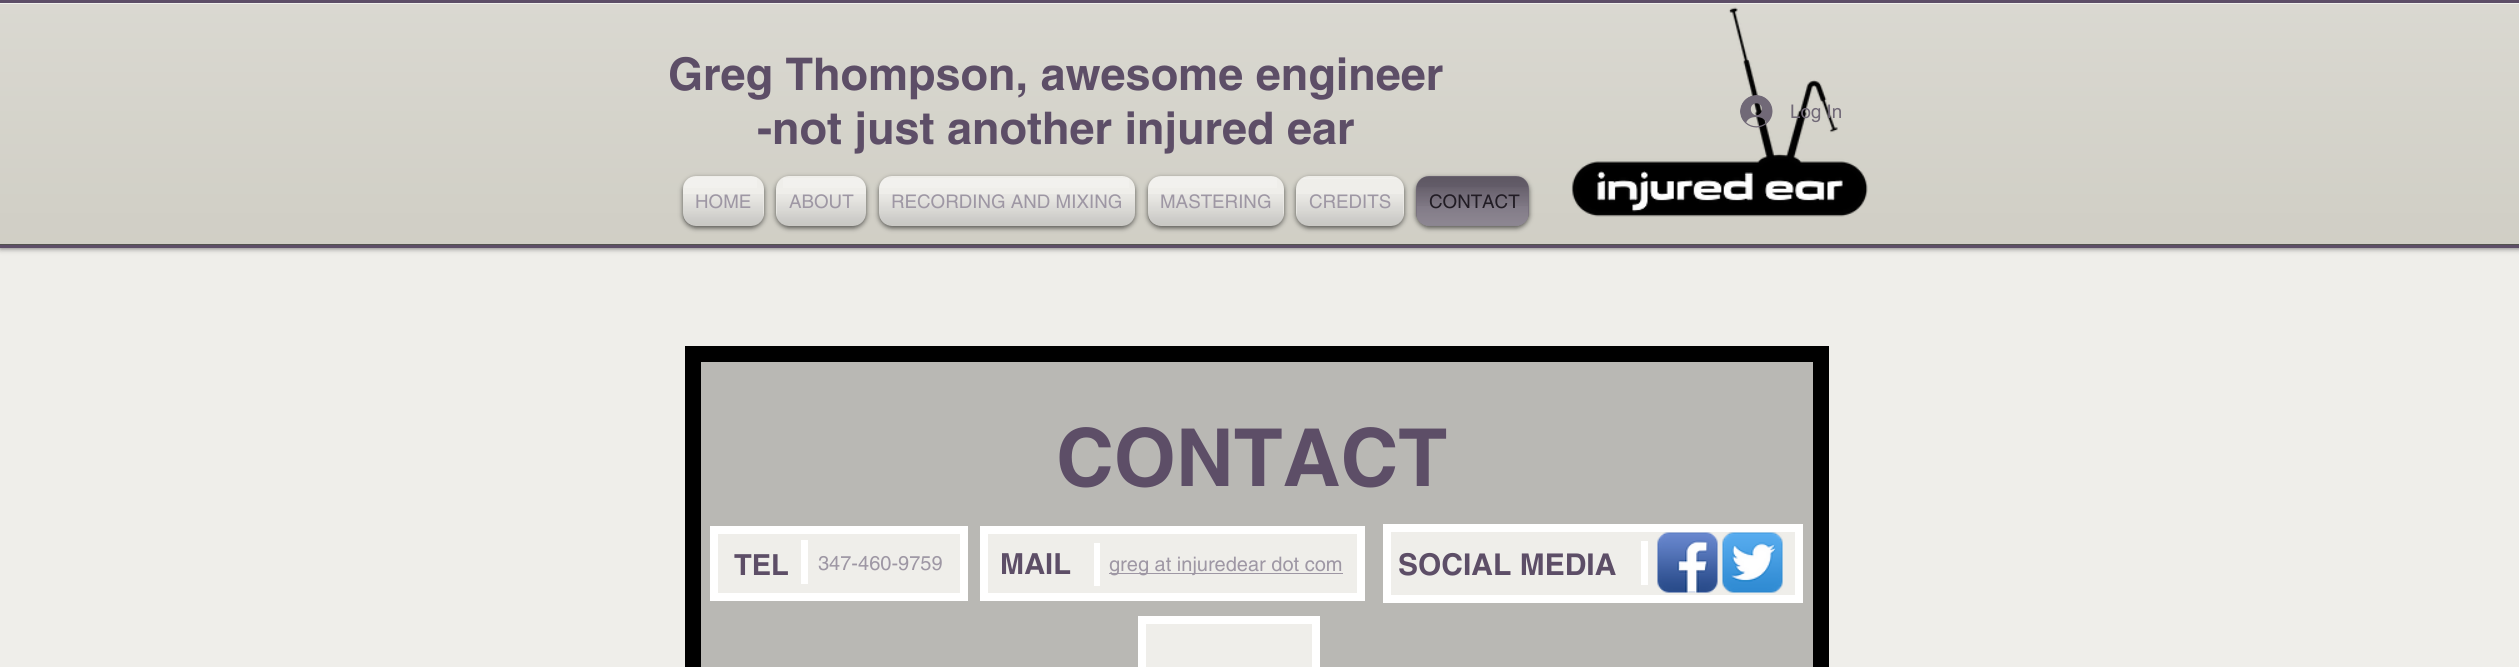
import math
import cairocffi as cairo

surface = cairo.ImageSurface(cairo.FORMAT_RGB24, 2519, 667)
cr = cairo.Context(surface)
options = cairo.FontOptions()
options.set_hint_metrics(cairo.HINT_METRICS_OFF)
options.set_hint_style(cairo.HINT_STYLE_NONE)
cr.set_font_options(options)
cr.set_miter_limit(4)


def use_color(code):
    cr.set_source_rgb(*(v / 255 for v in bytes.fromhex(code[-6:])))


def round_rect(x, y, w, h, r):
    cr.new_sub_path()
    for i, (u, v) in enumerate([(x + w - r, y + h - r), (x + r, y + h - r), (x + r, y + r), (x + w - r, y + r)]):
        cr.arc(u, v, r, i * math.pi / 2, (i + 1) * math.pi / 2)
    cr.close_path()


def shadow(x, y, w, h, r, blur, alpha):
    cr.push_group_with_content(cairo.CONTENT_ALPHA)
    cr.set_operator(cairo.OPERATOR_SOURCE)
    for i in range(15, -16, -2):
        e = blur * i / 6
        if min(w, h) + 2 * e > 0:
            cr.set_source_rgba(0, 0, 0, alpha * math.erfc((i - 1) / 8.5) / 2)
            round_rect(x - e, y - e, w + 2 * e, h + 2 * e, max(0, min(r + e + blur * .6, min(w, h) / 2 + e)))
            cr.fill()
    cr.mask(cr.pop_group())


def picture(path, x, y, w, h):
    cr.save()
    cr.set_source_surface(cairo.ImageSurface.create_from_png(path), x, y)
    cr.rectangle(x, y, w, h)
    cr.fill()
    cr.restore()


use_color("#efeeea")
cr.paint()
use_color("#000000")
shadow(0, 0, 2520, 248, 0, 3, 0.6)
use_color("#cdcbc1")
cr.rectangle(0, 4, 2519, 240)
cr.fill()
picture("img1.png", 0, 4, 2519, 240)
use_color("#53534f")
cr.rectangle(0, 244, 2519, 1)
cr.fill()
use_color("#f0f0ed")
cr.rectangle(0, 3, 2519, 1)
cr.fill()
use_color("#5d4e67")
cr.rectangle(0, 0, 2519, 3)
cr.fill()
cr.rectangle(0, 245, 2519, 3)
cr.fill()
cr.select_font_face("helvetica", cairo.FONT_SLANT_NORMAL, cairo.FONT_WEIGHT_BOLD)
cr.set_font_size(45)
cr.move_to(668, 90)
cr.show_text("Greg Thompson, awesome engineer")
cr.move_to(757, 144)
cr.show_text("-not just another injured ear")
picture("img2.png", 1571, 7, 297, 210)
picture("img3.png", 1740, 95, 33, 33)
cr.select_font_face("helvetica")
cr.set_font_size(18.75)
use_color("#716977")
cr.move_to(1790, 118)
cr.show_text("Log In")
use_color("#000000")
shadow(683, 178, 81, 50, 13, 2.5, 0.6)
use_color("#efeeea")
round_rect(683, 176, 81, 50, 13)
cr.fill()
picture("img4.png", 683, 177, 74, 11)
picture("img5.png", 683, 194, 81, 32)
use_color("#9e97a4")
cr.move_to(695, 208)
cr.show_text("HOME")
use_color("#000000")
shadow(776, 178, 90, 50, 13, 2.5, 0.6)
use_color("#efeeea")
round_rect(776, 176, 90, 50, 13)
cr.fill()
picture("img6.png", 783, 178, 83, 10)
picture("img7.png", 776, 194, 90, 32)
use_color("#9e97a4")
cr.move_to(789, 208)
cr.show_text("ABOUT")
use_color("#000000")
shadow(879, 178, 256, 50, 13, 2.5, 0.6)
use_color("#efeeea")
round_rect(879, 176, 256, 50, 13)
cr.fill()
picture("img8.png", 879, 178, 250, 10)
picture("img9.png", 879, 194, 256, 32)
use_color("#9e97a4")
cr.move_to(891, 208)
cr.show_text("RECORDING AND MIXING")
use_color("#000000")
shadow(1148, 178, 136, 50, 13, 2.5, 0.6)
use_color("#efeeea")
round_rect(1148, 176, 136, 50, 13)
cr.fill()
picture("img10.png", 1148, 177, 129, 11)
picture("img11.png", 1148, 194, 136, 32)
use_color("#9e97a4")
cr.move_to(1160, 208)
cr.show_text("MASTERING")
use_color("#000000")
shadow(1296, 178, 108, 50, 13, 2.5, 0.6)
use_color("#efeeea")
round_rect(1296, 176, 108, 50, 13)
cr.fill()
use_color("#f2f1ee")
cr.rectangle(1303, 178, 94, 1)
cr.fill()
picture("img12.png", 1296, 194, 108, 32)
use_color("#9e97a4")
cr.move_to(1309, 208)
cr.show_text("CREDITS")
use_color("#000000")
shadow(1416, 178, 113, 50, 13, 2.5, 0.6)
use_color("#716977")
round_rect(1416, 176, 113, 50, 13)
cr.fill()
picture("img13.png", 1416, 176, 113, 30)
picture("img14.png", 1416, 187, 113, 39)
use_color("#211c24")
cr.move_to(1429, 208)
cr.show_text("CONTACT")
use_color("#b9b8b4")
cr.rectangle(693, 354, 1128, 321)
cr.fill_preserve()
use_color("#000000")
cr.set_line_width(16)
cr.stroke()
cr.select_font_face("helvetica", cairo.FONT_SLANT_NORMAL, cairo.FONT_WEIGHT_BOLD)
cr.set_font_size(80)
use_color("#5d4e67")
cr.move_to(1056, 486)
cr.show_text("CONTACT")
use_color("#efeeea")
cr.rectangle(714, 530, 250, 67)
cr.fill_preserve()
use_color("#ffffff")
cr.set_line_width(8)
cr.stroke()
cr.set_font_size(29)
use_color("#5d4e67")
cr.move_to(734, 575)
cr.show_text("TEL")
use_color("#ffffff")
cr.rectangle(801, 540, 7, 44)
cr.fill()
cr.select_font_face("helvetica")
cr.set_font_size(20)
use_color("#9e97a4")
cr.move_to(818, 570)
cr.show_text("347-460-9759")
use_color("#efeeea")
cr.rectangle(984, 530, 377, 67)
cr.fill_preserve()
use_color("#ffffff")
cr.stroke()
cr.select_font_face("helvetica", cairo.FONT_SLANT_NORMAL, cairo.FONT_WEIGHT_BOLD)
cr.set_font_size(29)
use_color("#5d4e67")
cr.move_to(1000, 574)
cr.show_text("MAIL")
use_color("#ffffff")
cr.rectangle(1094, 543, 6, 43)
cr.fill()
use_color("#9e97a4")
cr.rectangle(1109, 573, 234, 1)
cr.fill()
cr.select_font_face("helvetica")
cr.set_font_size(20)
cr.move_to(1109, 571)
cr.show_text("greg at injuredear dot com")
use_color("#efeeea")
cr.rectangle(1387, 528, 412, 71)
cr.fill_preserve()
use_color("#ffffff")
cr.stroke()
cr.select_font_face("helvetica", cairo.FONT_SLANT_NORMAL, cairo.FONT_WEIGHT_BOLD)
cr.set_font_size(30)
use_color("#5d4e67")
cr.move_to(1398, 575)
cr.show_text("SOCIAL MEDIA")
use_color("#ffffff")
cr.rectangle(1641, 541, 7, 44)
cr.fill()
picture("img15.png", 1657, 532, 61, 61)
picture("img16.png", 1722, 532, 61, 61)
use_color("#efeeea")
cr.rectangle(1142, 620, 174, 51)
cr.fill_preserve()
use_color("#ffffff")
cr.stroke()
surface.write_to_png("result.png")
